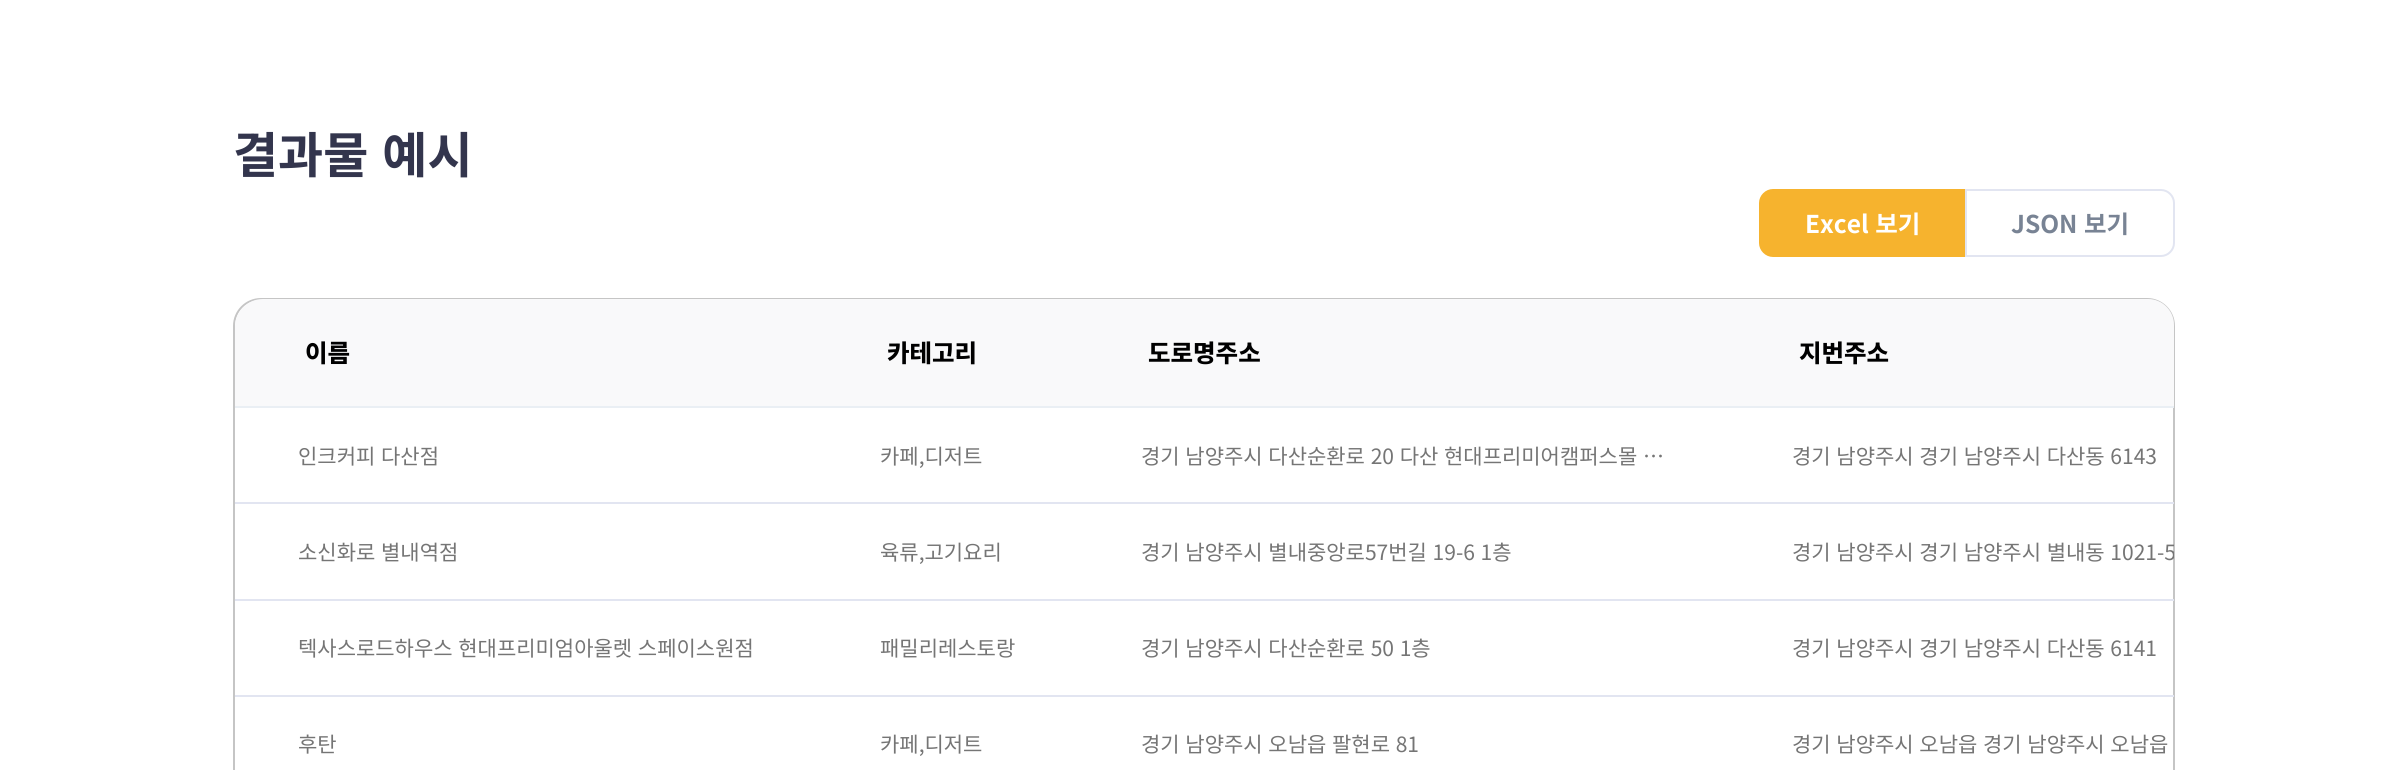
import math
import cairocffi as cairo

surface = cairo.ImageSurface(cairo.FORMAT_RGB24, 2408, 770)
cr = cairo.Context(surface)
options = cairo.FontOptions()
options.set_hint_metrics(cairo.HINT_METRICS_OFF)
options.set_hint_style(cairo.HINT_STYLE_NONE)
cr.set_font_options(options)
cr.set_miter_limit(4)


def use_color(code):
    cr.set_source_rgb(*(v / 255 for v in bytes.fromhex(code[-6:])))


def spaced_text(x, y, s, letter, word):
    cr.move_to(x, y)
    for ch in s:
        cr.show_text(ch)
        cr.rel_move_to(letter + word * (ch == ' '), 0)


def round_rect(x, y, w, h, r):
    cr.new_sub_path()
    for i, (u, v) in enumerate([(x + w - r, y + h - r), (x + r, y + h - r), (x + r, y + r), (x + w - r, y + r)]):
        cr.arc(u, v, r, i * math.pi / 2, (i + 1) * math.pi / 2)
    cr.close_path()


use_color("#ffffff")
cr.paint()
cr.select_font_face("Noto Sans KR", cairo.FONT_SLANT_NORMAL, cairo.FONT_WEIGHT_BOLD)
cr.set_font_size(49)
use_color("#33354d")
spaced_text(233, 173, "결과물 예시", 0, 3)
use_color("#f6b32e")
cr.new_path()
cr.move_to(1773, 190)
cr.line_to(1964, 190)
cr.line_to(1964, 256)
cr.line_to(1773, 256)
cr.curve_to(1766, 256, 1760, 250, 1760, 243)
cr.line_to(1760, 203)
cr.curve_to(1760, 196, 1766, 190, 1773, 190)
cr.close_path()
cr.fill_preserve()
cr.stroke()
cr.set_font_size(24.5)
use_color("#ffffff")
spaced_text(1805, 233, "Excel 보기", 0, 1)
cr.new_path()
cr.move_to(1966, 190)
cr.line_to(2161, 190)
cr.curve_to(2168, 190, 2174, 196, 2174, 203)
cr.line_to(2174, 243)
cr.curve_to(2174, 250, 2168, 256, 2161, 256)
cr.line_to(1966, 256)
cr.close_path()
use_color("#e2e5f1")
cr.stroke()
use_color("#788394")
spaced_text(2011, 233, "JSON 보기", 0, 1)
round_rect(234, 299, 1940, 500, 27)
use_color("#c5c5c5")
cr.stroke()
cr.save()
round_rect(235, 299, 1939, 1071, 26)
cr.clip()
use_color("#f9f9fa")
cr.new_path()
cr.move_to(263, 299)
cr.line_to(2148, 299)
cr.curve_to(2162.5, 299, 2174, 310.5, 2174, 325)
cr.line_to(2174, 406)
cr.line_to(235, 406)
cr.line_to(235, 327)
cr.curve_to(235, 311.5, 247.5, 299, 263, 299)
cr.close_path()
cr.fill()
cr.restore()
cr.select_font_face("Noto Sans KR ExtraBold")
use_color("#000000")
cr.move_to(305, 362)
cr.show_text("이름")
cr.move_to(887, 362)
cr.show_text("카테고리")
cr.move_to(1148, 362)
cr.show_text("도로명주소")
use_color("#eaeff4")
cr.rectangle(235, 406, 1939, 2)
cr.fill()
use_color("#000000")
cr.move_to(1799, 362)
cr.show_text("지번주소")
cr.select_font_face("Noto Sans KR")
cr.set_font_size(21)
use_color("#757575")
spaced_text(298, 464, "인크커피 다산점", 0, 1)
cr.move_to(880, 464)
cr.show_text("카페,디저트")
spaced_text(1141, 464, "경기 남양주시 다산순환로 20 다산 현대프리미어캠퍼스몰 …", 0, 1)
use_color("#e2e5f1")
cr.rectangle(235, 502, 1939, 2)
cr.fill()
use_color("#757575")
spaced_text(1792, 464, "경기 남양주시 경기 남양주시 다산동 6143", 0, 1)
spaced_text(298, 560, "소신화로 별내역점", 0, 1)
cr.move_to(880, 560)
cr.show_text("육류,고기요리")
spaced_text(1141, 560, "경기 남양주시 별내중앙로57번길 19-6 1층", 0, 1)
use_color("#e2e5f1")
cr.rectangle(235, 599, 1939, 2)
cr.fill()
cr.save()
round_rect(235, 299, 1939, 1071, 26)
cr.clip()
use_color("#757575")
spaced_text(1792, 560, "경기 남양주시 경기 남양주시 별내동 1021-5", 0, 1)
cr.restore()
use_color("#757575")
spaced_text(298, 656, "텍사스로드하우스 현대프리미엄아울렛 스페이스원점", 0, 1)
cr.move_to(880, 656)
cr.show_text("패밀리레스토랑")
spaced_text(1141, 656, "경기 남양주시 다산순환로 50 1층", 0, 1)
use_color("#e2e5f1")
cr.rectangle(235, 695, 1939, 2)
cr.fill()
use_color("#757575")
spaced_text(1792, 656, "경기 남양주시 경기 남양주시 다산동 6141", 0, 1)
cr.move_to(298, 752)
cr.show_text("후탄")
cr.move_to(880, 752)
cr.show_text("카페,디저트")
spaced_text(1141, 752, "경기 남양주시 오남읍 팔현로 81", 0, 1)
spaced_text(1792, 752, "경기 남양주시 오남읍 경기 남양주시 오남읍", 0, 1)
surface.write_to_png("result.png")
